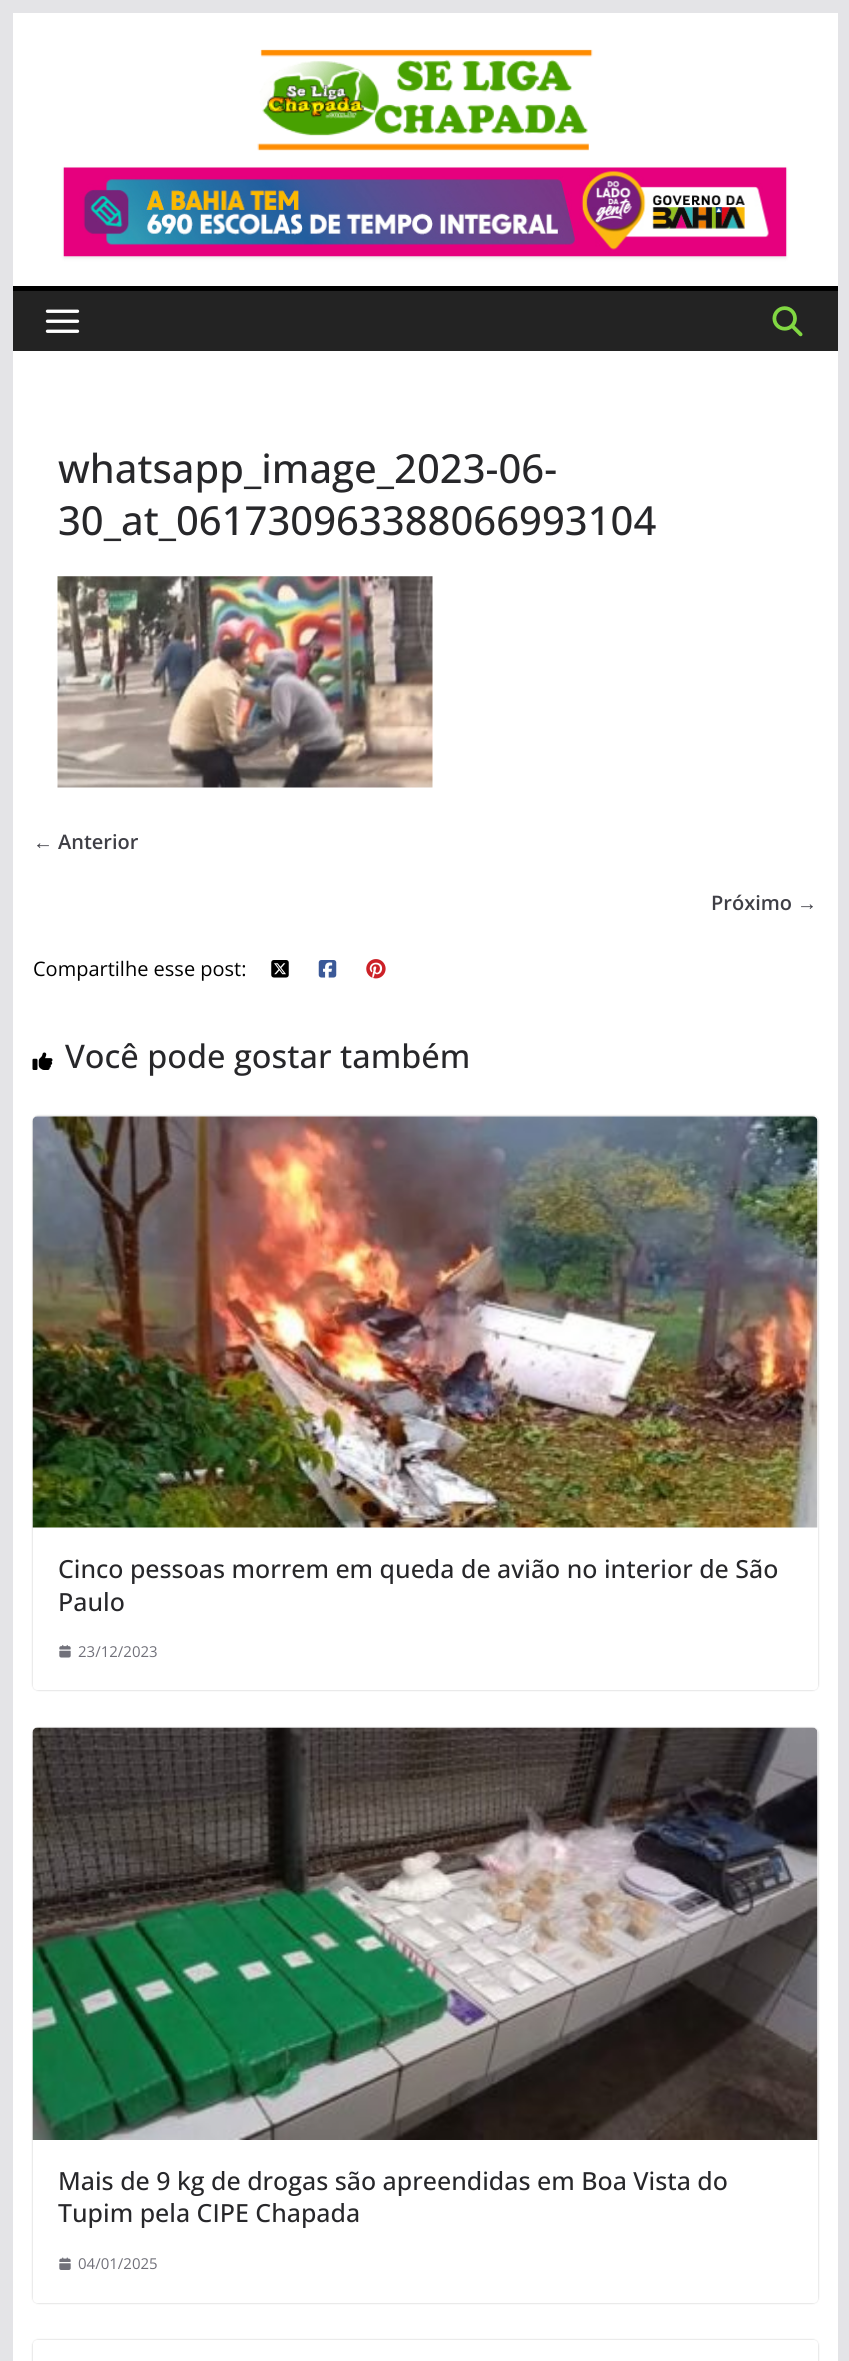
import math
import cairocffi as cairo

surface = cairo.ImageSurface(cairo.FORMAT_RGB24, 849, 2361)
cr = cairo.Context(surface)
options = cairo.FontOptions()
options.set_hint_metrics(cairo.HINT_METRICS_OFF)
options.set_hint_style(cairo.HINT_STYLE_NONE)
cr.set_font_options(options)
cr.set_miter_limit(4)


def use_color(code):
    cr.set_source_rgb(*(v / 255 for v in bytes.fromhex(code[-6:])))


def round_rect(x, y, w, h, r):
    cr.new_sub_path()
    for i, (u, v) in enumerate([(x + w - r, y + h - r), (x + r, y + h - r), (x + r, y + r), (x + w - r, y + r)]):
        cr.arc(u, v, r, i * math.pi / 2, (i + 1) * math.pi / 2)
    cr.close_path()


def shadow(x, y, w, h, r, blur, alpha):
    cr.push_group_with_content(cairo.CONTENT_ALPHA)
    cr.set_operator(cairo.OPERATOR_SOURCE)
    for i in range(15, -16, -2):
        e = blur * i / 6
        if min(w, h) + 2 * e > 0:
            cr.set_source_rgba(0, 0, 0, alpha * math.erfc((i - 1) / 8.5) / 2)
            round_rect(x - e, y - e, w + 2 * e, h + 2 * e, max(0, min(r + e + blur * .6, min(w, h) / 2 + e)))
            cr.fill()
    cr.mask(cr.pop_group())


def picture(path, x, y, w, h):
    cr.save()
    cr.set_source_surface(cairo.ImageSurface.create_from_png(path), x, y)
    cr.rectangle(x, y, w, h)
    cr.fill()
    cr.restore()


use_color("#e4e4e7")
cr.paint()
use_color("#ffffff")
cr.rectangle(13, 13, 825, 273)
cr.fill()
picture("img1.png", 257, 49, 336, 102)
use_color("#000000")
shadow(64, 169, 722, 89, 0, 2, 0.1)
picture("img2.png", 63, 167, 724, 90)
use_color("#232323")
cr.rectangle(13, 291, 825, 60)
cr.fill()
use_color("#000000")
cr.rectangle(13, 286, 825, 5)
cr.fill()
picture("img3.png", 45, 309, 35, 24)
picture("img4.png", 772, 306, 31, 31)
use_color("#ffffff")
cr.rectangle(13, 351, 825, 2010)
cr.fill()
cr.select_font_face("Open Sans Medium")
cr.set_font_size(40)
use_color("#27272a")
cr.move_to(58, 483)
cr.show_text("whatsapp_image_2023-06-")
cr.move_to(58, 535)
cr.show_text("30_at_061730963388066993104")
picture("img5.png", 57, 576, 376, 212)
cr.select_font_face("Liberation Serif", cairo.FONT_SLANT_NORMAL, cairo.FONT_WEIGHT_BOLD)
cr.set_font_size(20)
use_color("#3f3f46")
cr.move_to(33, 849)
cr.show_text("←")
cr.select_font_face("Open Sans SemiBold")
cr.move_to(58, 849)
cr.show_text("Anterior")
cr.move_to(711, 910)
cr.show_text("Próximo")
cr.select_font_face("Liberation Serif", cairo.FONT_SLANT_NORMAL, cairo.FONT_WEIGHT_BOLD)
cr.move_to(797, 910)
cr.show_text("→")
cr.select_font_face("Open Sans")
use_color("#000000")
cr.move_to(33, 976)
cr.show_text("Compartilhe esse post:")
picture("img6.png", 271, 960, 18, 18)
picture("img7.png", 318, 960, 19, 18)
picture("img8.png", 366, 959, 20, 20)
picture("img9.png", 32, 1052, 21, 18)
cr.select_font_face("Open Sans Medium")
cr.set_font_size(32.5)
use_color("#27272a")
cr.move_to(65, 1068)
cr.show_text("Você pode gostar também")
cr.save()
cr.set_fill_rule(cairo.FILL_RULE_EVEN_ODD)
cr.new_path()
cr.move_to(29, 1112)
cr.line_to(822, 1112)
cr.line_to(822, 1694)
cr.line_to(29, 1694)
cr.close_path()
cr.move_to(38, 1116)
cr.line_to(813, 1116)
cr.curve_to(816, 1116, 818, 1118, 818, 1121)
cr.line_to(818, 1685)
cr.curve_to(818, 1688, 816, 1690, 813, 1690)
cr.line_to(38, 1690)
cr.curve_to(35, 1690, 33, 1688, 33, 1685)
cr.line_to(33, 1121)
cr.curve_to(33, 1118, 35, 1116, 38, 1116)
cr.close_path()
cr.clip()
use_color("#000000")
shadow(33, 1116, 785, 574, 5, 1, 0.24)
cr.restore()
picture("img10.png", 32, 1116, 786, 412)
cr.set_font_size(25)
cr.move_to(58, 1578)
cr.show_text("Cinco pessoas morrem em queda de avião no interior de São")
cr.move_to(58, 1611)
cr.show_text("Paulo")
picture("img11.png", 59, 1645, 12, 13)
cr.select_font_face("Open Sans")
cr.set_font_size(15)
use_color("#71717a")
cr.move_to(78, 1657)
cr.show_text("23/12/2023")
cr.save()
cr.set_fill_rule(cairo.FILL_RULE_EVEN_ODD)
cr.new_path()
cr.move_to(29, 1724)
cr.line_to(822, 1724)
cr.line_to(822, 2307)
cr.line_to(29, 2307)
cr.close_path()
cr.move_to(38, 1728)
cr.line_to(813, 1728)
cr.curve_to(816, 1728, 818, 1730, 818, 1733)
cr.line_to(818, 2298)
cr.curve_to(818, 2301, 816, 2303, 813, 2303)
cr.line_to(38, 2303)
cr.curve_to(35, 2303, 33, 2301, 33, 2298)
cr.line_to(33, 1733)
cr.curve_to(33, 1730, 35, 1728, 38, 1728)
cr.close_path()
cr.clip()
use_color("#000000")
shadow(33, 1728, 785, 575, 5, 1, 0.24)
cr.restore()
picture("img12.png", 32, 1727, 786, 413)
cr.select_font_face("Open Sans Medium")
cr.set_font_size(25)
use_color("#27272a")
cr.move_to(58, 2190)
cr.show_text("Mais de 9 kg de drogas são apreendidas em Boa Vista do")
cr.move_to(58, 2222)
cr.show_text("Tupim pela CIPE Chapada")
picture("img13.png", 59, 2257, 12, 13)
cr.select_font_face("Open Sans")
cr.set_font_size(15)
use_color("#71717a")
cr.move_to(78, 2269)
cr.show_text("04/01/2025")
cr.save()
cr.set_fill_rule(cairo.FILL_RULE_EVEN_ODD)
cr.new_path()
cr.move_to(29, 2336)
cr.line_to(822, 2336)
cr.line_to(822, 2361)
cr.line_to(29, 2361)
cr.close_path()
cr.move_to(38, 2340)
cr.line_to(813, 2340)
cr.curve_to(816, 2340, 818, 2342, 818, 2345)
cr.line_to(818, 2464)
cr.curve_to(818, 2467, 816, 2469, 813, 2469)
cr.line_to(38, 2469)
cr.curve_to(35, 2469, 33, 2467, 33, 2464)
cr.line_to(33, 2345)
cr.curve_to(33, 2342, 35, 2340, 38, 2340)
cr.close_path()
cr.clip()
use_color("#000000")
shadow(33, 2340, 785, 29, 5, 1, 0.24)
cr.restore()
surface.write_to_png("result.png")
